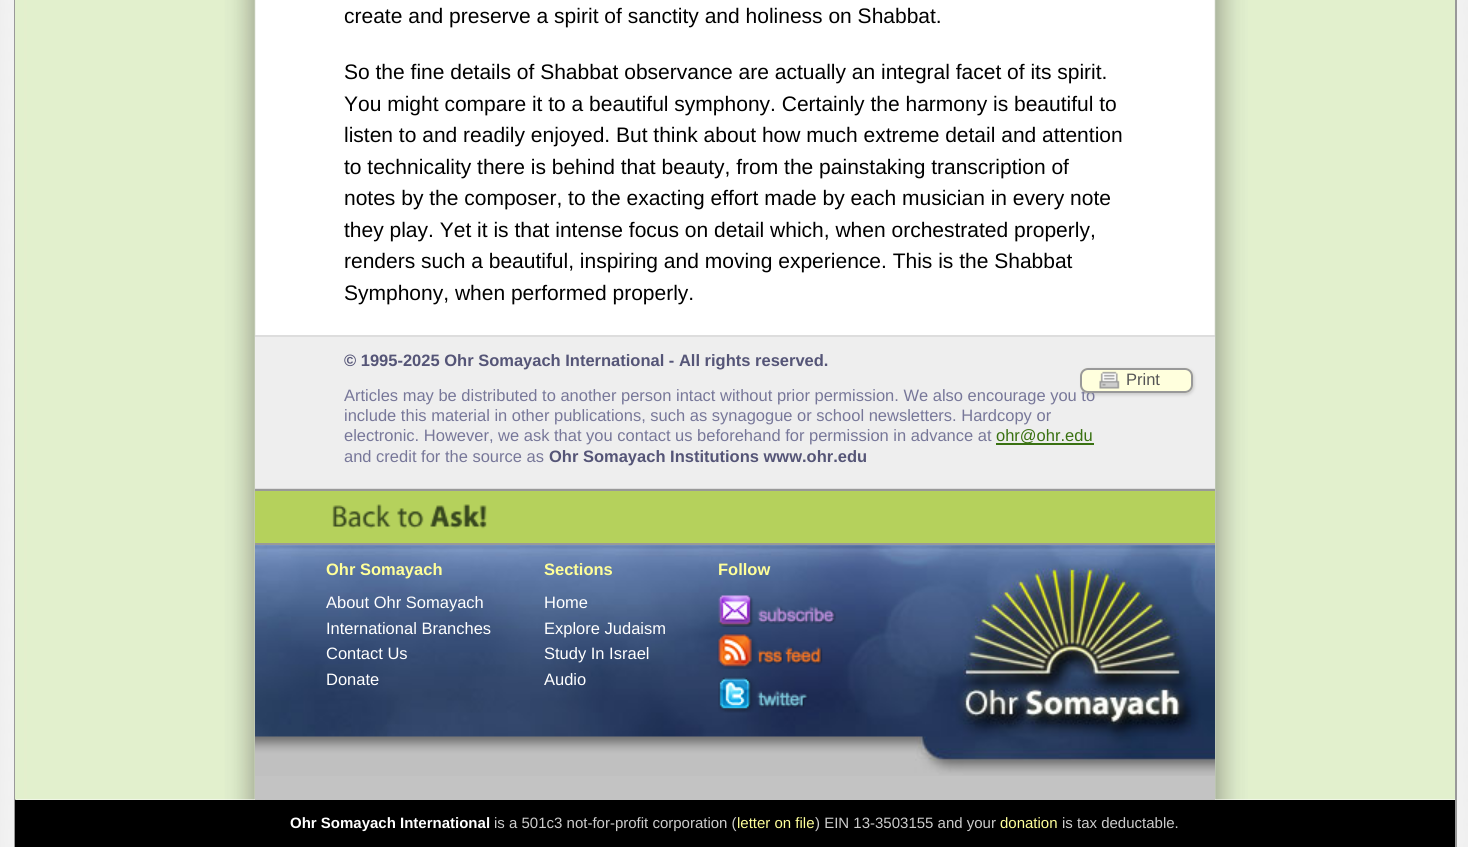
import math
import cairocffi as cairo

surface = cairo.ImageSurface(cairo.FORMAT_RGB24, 1468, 847)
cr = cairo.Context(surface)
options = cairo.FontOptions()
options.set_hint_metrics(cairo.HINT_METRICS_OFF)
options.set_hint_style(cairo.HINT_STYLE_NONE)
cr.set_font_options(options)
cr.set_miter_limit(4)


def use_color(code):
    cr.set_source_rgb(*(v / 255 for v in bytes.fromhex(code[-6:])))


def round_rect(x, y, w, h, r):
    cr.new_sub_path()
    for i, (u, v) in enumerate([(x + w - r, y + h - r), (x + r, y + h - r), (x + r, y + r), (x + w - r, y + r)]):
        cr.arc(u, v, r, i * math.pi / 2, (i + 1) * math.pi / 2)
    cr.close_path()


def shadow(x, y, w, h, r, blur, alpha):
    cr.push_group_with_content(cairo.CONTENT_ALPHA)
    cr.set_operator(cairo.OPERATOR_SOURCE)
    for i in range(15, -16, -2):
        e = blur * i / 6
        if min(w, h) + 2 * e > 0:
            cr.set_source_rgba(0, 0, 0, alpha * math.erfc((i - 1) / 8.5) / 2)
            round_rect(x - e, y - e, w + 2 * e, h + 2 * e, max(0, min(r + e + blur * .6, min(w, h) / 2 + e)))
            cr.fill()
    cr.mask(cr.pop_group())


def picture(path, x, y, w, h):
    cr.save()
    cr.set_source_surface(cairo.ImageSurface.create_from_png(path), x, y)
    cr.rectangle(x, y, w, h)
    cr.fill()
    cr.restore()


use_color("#ffffff")
cr.paint()
picture("img1.png", 0, 0, 1468, 847)
use_color("#ffffff")
cr.rectangle(1454, 799, 1, 1)
cr.fill()
use_color("#999999")
cr.rectangle(1455, 0, 2, 847)
cr.fill()
cr.rectangle(14, 0, 2, 847)
cr.fill()
picture("img2.png", 15, 0, 1440, 800)
cr.select_font_face("Liberation Sans")
cr.set_font_size(21)
use_color("#000000")
cr.move_to(344, 23)
cr.show_text("create and preserve a spirit of sanctity and holiness on Shabbat.")
cr.move_to(344, 79)
cr.show_text("So the fine details of Shabbat observance are actually an integral facet of its spirit.")
cr.move_to(344, 111)
cr.show_text("You might compare it to a beautiful symphony. Certainly the harmony is beautiful to")
cr.move_to(344, 142)
cr.show_text("listen to and readily enjoyed. But think about how much extreme detail and attention")
cr.move_to(344, 174)
cr.show_text("to technicality there is behind that beauty, from the painstaking transcription of")
cr.move_to(344, 205)
cr.show_text("notes by the composer, to the exacting effort made by each musician in every note")
cr.move_to(344, 237)
cr.show_text("they play. Yet it is that intense focus on detail which, when orchestrated properly,")
cr.move_to(344, 268)
cr.show_text("renders such a beautiful, inspiring and moving experience. This is the Shabbat")
cr.move_to(344, 300)
cr.show_text("Symphony, when performed properly.")
use_color("#eeeeee")
cr.rectangle(255, 337, 960, 151)
cr.fill()
use_color("#cccccc")
shadow(1082, 369, 112, 26, 8, 1.5, 1)
cr.set_font_size(16.5)
use_color("#777799")
cr.move_to(344, 401)
cr.show_text("Articles may be distributed to another person intact without prior permission. We also encourage you to")
use_color("#ffffdd")
round_rect(1080, 368, 113, 25, 8)
cr.fill()
picture("img3.png", 1099, 371, 21, 18)
round_rect(1081, 369, 111, 23, 7)
use_color("#999999")
cr.stroke()
use_color("#555555")
cr.move_to(1126, 385)
cr.show_text("Print")
use_color("#dddddd")
cr.rectangle(255, 335, 960, 2)
cr.fill()
cr.rectangle(255, 488, 960, 1)
cr.fill()
cr.select_font_face("Liberation Sans", cairo.FONT_SLANT_NORMAL, cairo.FONT_WEIGHT_BOLD)
use_color("#555577")
cr.move_to(344, 366)
cr.show_text("© 1995-2025 Ohr Somayach International - All rights reserved.")
cr.select_font_face("Liberation Sans")
use_color("#777799")
cr.move_to(344, 421)
cr.show_text("include this material in other publications, such as synagogue or school newsletters. Hardcopy or")
cr.move_to(344, 441)
cr.show_text("electronic. However, we ask that you contact us beforehand for permission in advance at")
use_color("#397111")
cr.rectangle(996, 443, 98, 2)
cr.fill()
cr.move_to(996, 441)
cr.show_text("ohr@ohr.edu")
use_color("#777799")
cr.move_to(344, 462)
cr.show_text("and credit for the source as")
cr.select_font_face("Liberation Sans", cairo.FONT_SLANT_NORMAL, cairo.FONT_WEIGHT_BOLD)
use_color("#555577")
cr.move_to(549, 462)
cr.show_text("Ohr Somayach Institutions www.ohr.edu")
use_color("#b5d15c")
cr.rectangle(255, 491, 960, 52)
cr.fill()
use_color("#999999")
cr.rectangle(255, 489, 960, 2)
cr.fill()
cr.rectangle(255, 543, 960, 2)
cr.fill()
picture("img4.png", 332, 504, 59, 25)
picture("img5.png", 397, 508, 27, 21)
picture("img6.png", 430, 504, 57, 25)
use_color("#c3c3c3")
cr.rectangle(255, 776, 960, 24)
cr.fill()
picture("img7.png", 255, 545, 960, 231)
use_color("#ffff99")
cr.move_to(326, 575)
cr.show_text("Ohr Somayach")
cr.move_to(544, 575)
cr.show_text("Sections")
cr.move_to(718, 575)
cr.show_text("Follow")
cr.select_font_face("Liberation Sans")
use_color("#ffffff")
cr.move_to(326, 608)
cr.show_text("About Ohr Somayach")
cr.move_to(326, 634)
cr.show_text("International Branches")
cr.move_to(326, 659)
cr.show_text("Contact Us")
cr.move_to(326, 685)
cr.show_text("Donate")
cr.move_to(544, 608)
cr.show_text("Home")
cr.move_to(544, 634)
cr.show_text("Explore Judaism")
cr.move_to(544, 659)
cr.show_text("Study In Israel")
cr.move_to(544, 685)
cr.show_text("Audio")
picture("img8.png", 718, 595, 118, 32)
picture("img9.png", 717, 633, 106, 36)
picture("img10.png", 718, 676, 91, 37)
use_color("#000000")
cr.rectangle(15, 800, 1440, 47)
cr.fill()
cr.select_font_face("Liberation Sans", cairo.FONT_SLANT_NORMAL, cairo.FONT_WEIGHT_BOLD)
cr.set_font_size(15)
use_color("#ffffff")
cr.move_to(290, 828)
cr.show_text("Ohr Somayach International")
cr.select_font_face("Liberation Sans")
use_color("#cccccc")
cr.move_to(494, 828)
cr.show_text("is a 501c3 not-for-profit corporation (")
use_color("#ffff99")
cr.move_to(737, 828)
cr.show_text("letter on file")
use_color("#cccccc")
cr.move_to(815, 828)
cr.show_text(") EIN 13-3503155 and your")
use_color("#ffff99")
cr.move_to(1000, 828)
cr.show_text("donation")
use_color("#cccccc")
cr.move_to(1062, 828)
cr.show_text("is tax deductable.")
surface.write_to_png("result.png")
